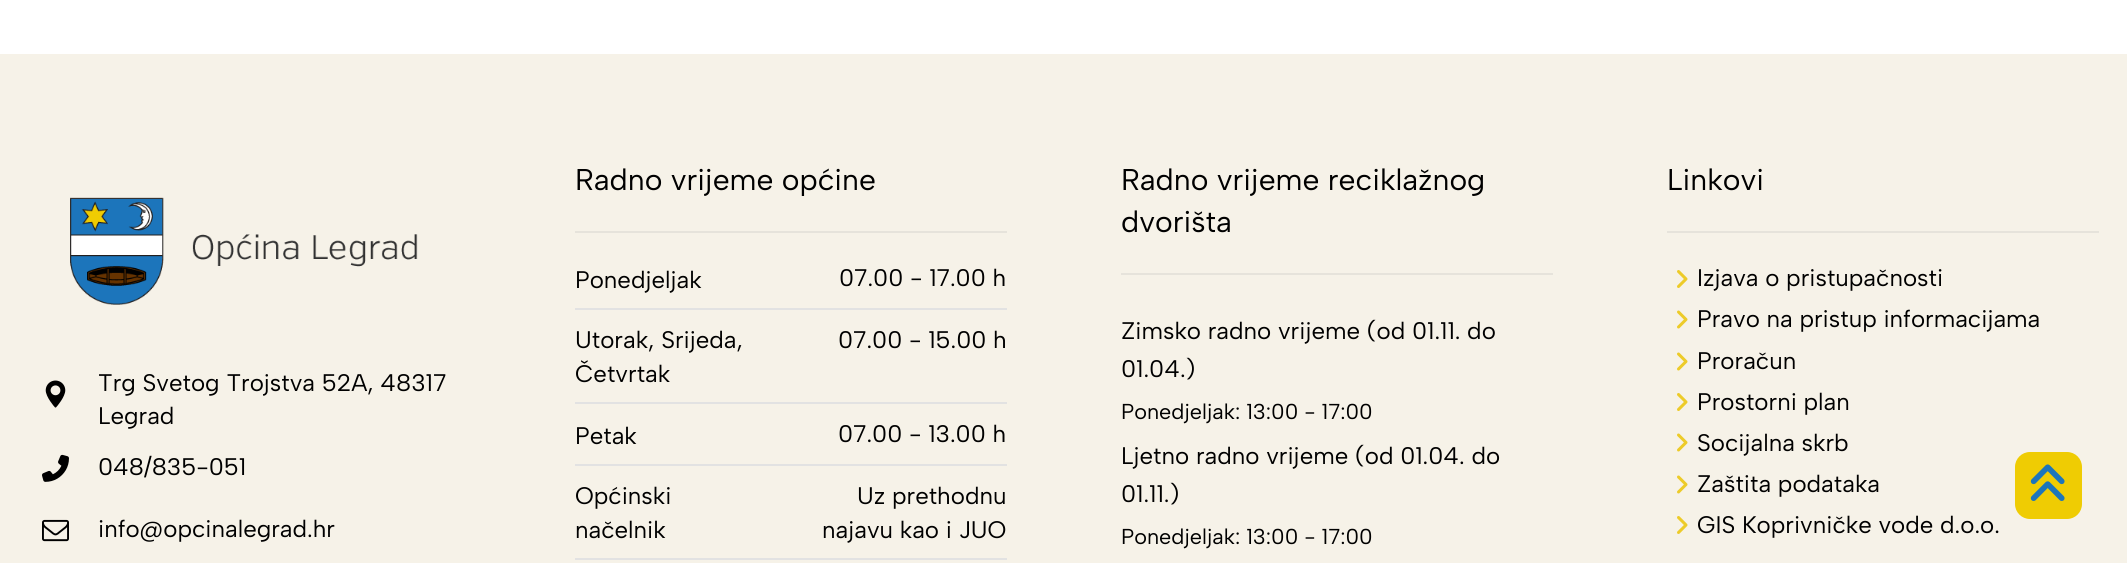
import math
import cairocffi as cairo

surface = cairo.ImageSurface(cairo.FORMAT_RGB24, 2127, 563)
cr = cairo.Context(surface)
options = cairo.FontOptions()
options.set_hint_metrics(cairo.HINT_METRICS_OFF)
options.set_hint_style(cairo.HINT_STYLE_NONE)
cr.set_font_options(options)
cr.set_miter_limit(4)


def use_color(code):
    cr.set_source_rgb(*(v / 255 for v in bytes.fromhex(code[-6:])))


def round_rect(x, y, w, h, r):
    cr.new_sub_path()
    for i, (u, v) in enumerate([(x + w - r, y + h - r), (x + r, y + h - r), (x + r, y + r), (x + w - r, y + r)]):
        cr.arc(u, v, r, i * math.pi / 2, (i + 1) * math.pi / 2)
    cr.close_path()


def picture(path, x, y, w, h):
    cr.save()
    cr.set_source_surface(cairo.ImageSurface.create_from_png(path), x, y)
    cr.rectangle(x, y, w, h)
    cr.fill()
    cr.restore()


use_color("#ffffff")
cr.paint()
use_color("#f6f2e8")
cr.rectangle(0, 54, 2127, 509)
cr.fill()
picture("img1.png", 70, 197, 348, 108)
picture("img2.png", 45, 380, 21, 28)
cr.select_font_face("Albert Sans")
cr.set_font_size(24)
use_color("#000000")
cr.move_to(98, 391)
cr.show_text("Trg Svetog Trojstva 52A, 48317")
cr.move_to(98, 424)
cr.show_text("Legrad")
picture("img3.png", 42, 454, 27, 28)
cr.move_to(98, 475)
cr.show_text("048/835-051")
picture("img4.png", 42, 519, 27, 23)
cr.move_to(98, 537)
cr.show_text("info@opcinalegrad.hr")
use_color("#e6e3db")
cr.rectangle(575, 231, 432, 2)
cr.fill()
cr.set_font_size(30)
use_color("#000000")
cr.move_to(575, 190)
cr.show_text("Radno vrijeme općine")
cr.set_font_size(24)
cr.move_to(575, 288)
cr.show_text("Ponedjeljak")
cr.move_to(839, 286)
cr.show_text("07.00 - 17.00 h")
use_color("#e2e2e2")
cr.rectangle(575, 308, 432, 2)
cr.fill()
use_color("#000000")
cr.move_to(575, 348)
cr.show_text("Utorak, Srijeda,")
cr.move_to(575, 382)
cr.show_text("Četvrtak")
cr.move_to(838, 348)
cr.show_text("07.00 - 15.00 h")
use_color("#e2e2e2")
cr.rectangle(575, 402, 432, 2)
cr.fill()
use_color("#000000")
cr.move_to(575, 444)
cr.show_text("Petak")
cr.move_to(838, 442)
cr.show_text("07.00 - 13.00 h")
use_color("#e2e2e2")
cr.rectangle(575, 464, 432, 2)
cr.fill()
use_color("#000000")
cr.move_to(575, 504)
cr.show_text("Općinski")
cr.move_to(575, 538)
cr.show_text("načelnik")
cr.move_to(857, 504)
cr.show_text("Uz prethodnu")
cr.move_to(822, 538)
cr.show_text("najavu kao i JUO")
use_color("#e2e2e2")
cr.rectangle(575, 558, 432, 2)
cr.fill()
use_color("#e6e3db")
cr.rectangle(1121, 273, 432, 2)
cr.fill()
cr.set_font_size(30)
use_color("#000000")
cr.move_to(1121, 190)
cr.show_text("Radno vrijeme reciklažnog")
cr.move_to(1121, 232)
cr.show_text("dvorišta")
cr.set_font_size(24)
cr.move_to(1121, 339)
cr.show_text("Zimsko radno vrijeme (od 01.11. do")
cr.move_to(1121, 377)
cr.show_text("01.04.)")
cr.set_font_size(21.6)
cr.move_to(1121, 419)
cr.show_text("Ponedjeljak: 13:00 - 17:00")
cr.set_font_size(24)
cr.move_to(1121, 464)
cr.show_text("Ljetno radno vrijeme (od 01.04. do")
cr.move_to(1121, 502)
cr.show_text("01.11.)")
cr.set_font_size(21.6)
cr.move_to(1121, 544)
cr.show_text("Ponedjeljak: 13:00 - 17:00")
use_color("#e6e3db")
cr.rectangle(1667, 231, 432, 2)
cr.fill()
cr.set_font_size(30)
use_color("#000000")
cr.move_to(1667, 190)
cr.show_text("Linkovi")
picture("img5.png", 1677, 270, 11, 18)
cr.set_font_size(24)
cr.move_to(1697, 286)
cr.show_text("Izjava o pristupačnosti")
picture("img6.png", 1677, 310, 11, 19)
cr.move_to(1697, 327)
cr.show_text("Pravo na pristup informacijama")
picture("img6.png", 1677, 352, 11, 19)
cr.move_to(1697, 369)
cr.show_text("Proračun")
picture("img5.png", 1677, 393, 11, 18)
cr.move_to(1697, 410)
cr.show_text("Prostorni plan")
picture("img6.png", 1677, 433, 11, 19)
cr.move_to(1697, 451)
cr.show_text("Socijalna skrb")
picture("img6.png", 1677, 475, 11, 19)
cr.move_to(1697, 492)
cr.show_text("Zaštita podataka")
picture("img5.png", 1677, 516, 11, 18)
cr.move_to(1697, 533)
cr.show_text("GIS Koprivničke vode d.o.o.")
use_color("#efcc03")
round_rect(2015, 452, 67, 67, 15)
cr.fill()
picture("img7.png", 2030, 464, 35, 37)
surface.write_to_png("result.png")
